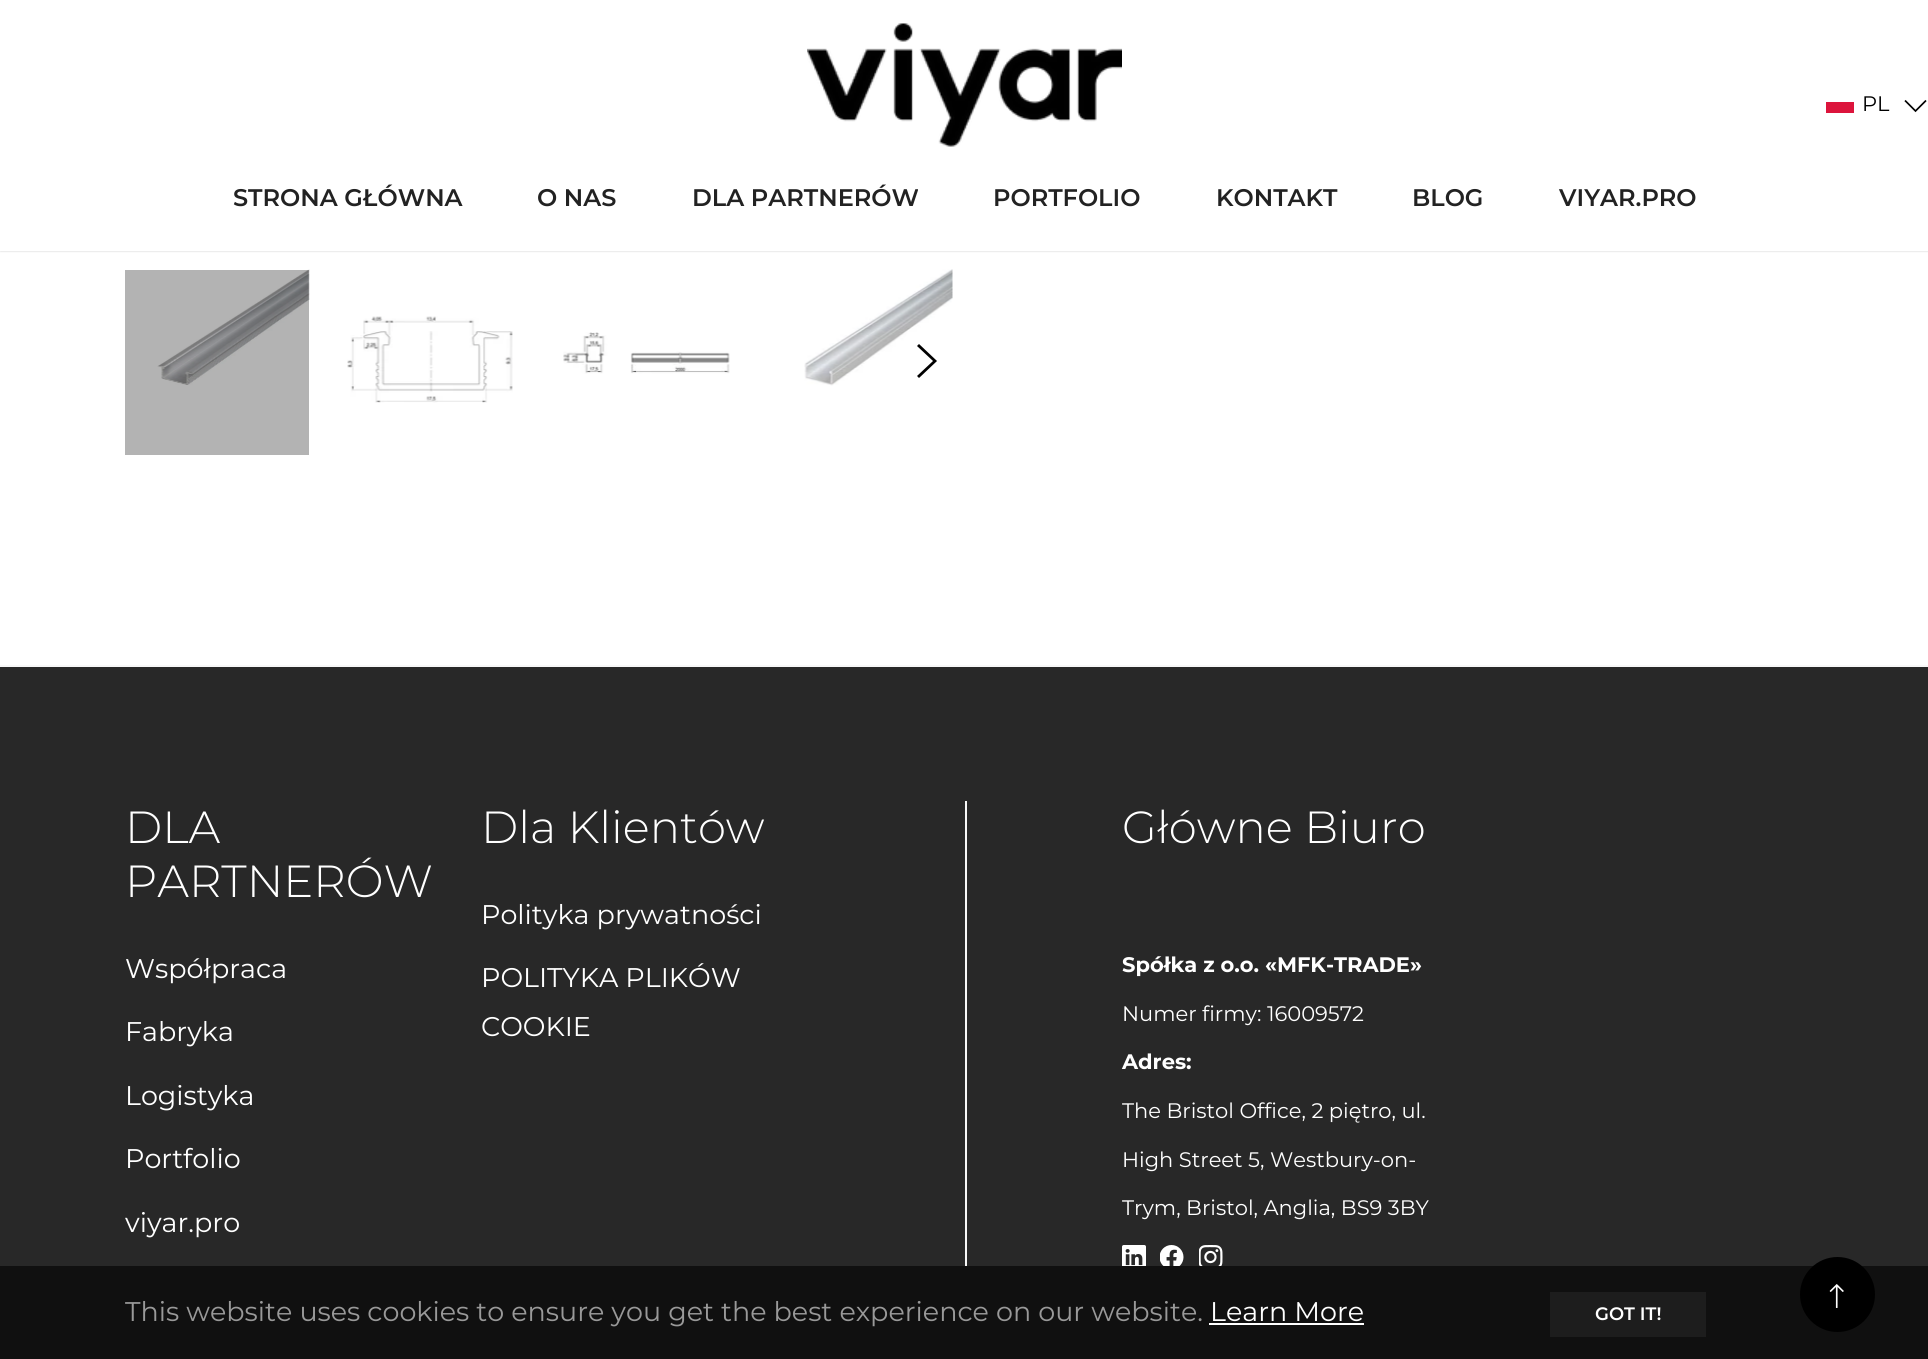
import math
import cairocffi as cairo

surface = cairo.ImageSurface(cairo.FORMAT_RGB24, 1928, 1359)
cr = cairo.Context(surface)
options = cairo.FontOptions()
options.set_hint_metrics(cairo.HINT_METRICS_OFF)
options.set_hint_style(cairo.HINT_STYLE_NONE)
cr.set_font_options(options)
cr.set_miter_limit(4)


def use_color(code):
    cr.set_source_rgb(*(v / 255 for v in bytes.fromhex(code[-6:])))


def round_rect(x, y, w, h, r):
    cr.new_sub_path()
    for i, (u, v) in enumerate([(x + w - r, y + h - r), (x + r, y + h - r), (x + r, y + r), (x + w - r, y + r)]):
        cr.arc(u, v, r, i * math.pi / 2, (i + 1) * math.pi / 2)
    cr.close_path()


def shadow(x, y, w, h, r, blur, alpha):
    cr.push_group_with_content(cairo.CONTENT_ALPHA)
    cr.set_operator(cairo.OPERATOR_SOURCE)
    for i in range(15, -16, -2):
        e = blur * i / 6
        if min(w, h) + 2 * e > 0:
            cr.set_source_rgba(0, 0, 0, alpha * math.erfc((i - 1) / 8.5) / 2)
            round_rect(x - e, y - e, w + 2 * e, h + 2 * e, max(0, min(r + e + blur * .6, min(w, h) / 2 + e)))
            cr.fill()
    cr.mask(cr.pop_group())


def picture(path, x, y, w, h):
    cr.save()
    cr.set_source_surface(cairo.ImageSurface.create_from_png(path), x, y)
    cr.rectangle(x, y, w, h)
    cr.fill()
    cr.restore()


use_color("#ffffff")
cr.paint()
use_color("#b3b3b3")
cr.rectangle(125, 270, 184, 185)
cr.fill()
use_color("#000000")
shadow(0, 0, 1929, 251, 0, 1, 0.2)
use_color("#ffffff")
cr.rectangle(0, 0, 1928, 251)
cr.fill()
use_color("#dc143c")
cr.rectangle(1826, 102, 28, 11)
cr.fill()
cr.select_font_face("Montserrat")
cr.set_font_size(21)
use_color("#000000")
cr.move_to(1862, 111)
cr.show_text("PL")
cr.new_path()
cr.move_to(1905, 100.5)
cr.line_to(1915.5, 111)
cr.line_to(1926, 100.5)
cr.set_line_width(1.7)
cr.stroke()
picture("img1.png", 807, 23, 315, 124)
cr.select_font_face("Montserrat SemiBold")
cr.set_font_size(24)
use_color("#222222")
cr.move_to(233, 206)
cr.show_text("STRONA GŁÓWNA")
cr.move_to(537, 206)
cr.show_text("O NAS")
cr.move_to(692, 206)
cr.show_text("DLA PARTNERÓW")
cr.move_to(993, 206)
cr.show_text("PORTFOLIO")
cr.move_to(1216, 206)
cr.show_text("KONTAKT")
cr.move_to(1412, 206)
cr.show_text("BLOG")
cr.move_to(1559, 206)
cr.show_text("VIYAR.PRO")
picture("img2.png", 157, 269, 153, 116)
picture("img3.png", 347, 316, 166, 87)
picture("img4.png", 563, 332, 167, 42)
picture("img5.png", 804, 269, 149, 117)
use_color("#000000")
cr.new_path()
cr.move_to(917, 346)
cr.line_to(919, 344)
cr.line_to(937, 361)
cr.line_to(919, 378)
cr.line_to(917, 376)
cr.line_to(933, 361)
cr.close_path()
cr.fill()
use_color("#282828")
cr.rectangle(0, 667, 1928, 599)
cr.fill()
use_color("#f8f8f8")
cr.rectangle(0, 665, 1928, 2)
cr.fill()
cr.select_font_face("Montserrat Light")
cr.set_font_size(45)
use_color("#ffffff")
cr.move_to(125, 843)
cr.show_text("DLA")
cr.move_to(125, 897)
cr.show_text("PARTNERÓW")
cr.select_font_face("Montserrat")
cr.set_font_size(27)
cr.move_to(125, 978)
cr.show_text("Współpraca")
cr.move_to(125, 1041)
cr.show_text("Fabryka")
cr.move_to(125, 1105)
cr.show_text("Logistyka")
cr.move_to(125, 1168)
cr.show_text("Portfolio")
cr.move_to(125, 1232)
cr.show_text("viyar.pro")
cr.select_font_face("Montserrat Light")
cr.set_font_size(45)
cr.move_to(481, 843)
cr.show_text("Dla Klientów")
cr.select_font_face("Montserrat")
cr.set_font_size(27)
cr.move_to(481, 924)
cr.show_text("Polityka prywatności")
cr.move_to(481, 987)
cr.show_text("POLITYKA PLIKÓW")
cr.move_to(481, 1036)
cr.show_text("COOKIE")
use_color("#f8f8f8")
cr.rectangle(965, 801, 2, 465)
cr.fill()
cr.select_font_face("Montserrat Light")
cr.set_font_size(45)
use_color("#ffffff")
cr.move_to(1122, 843)
cr.show_text("Główne Biuro")
cr.select_font_face("Montserrat", cairo.FONT_SLANT_NORMAL, cairo.FONT_WEIGHT_BOLD)
cr.set_font_size(21)
cr.move_to(1122, 972)
cr.show_text("Spółka z o.o. «MFK-TRADE»")
cr.select_font_face("Montserrat")
cr.move_to(1122, 1021)
cr.show_text("Numer firmy: 16009572")
cr.select_font_face("Montserrat", cairo.FONT_SLANT_NORMAL, cairo.FONT_WEIGHT_BOLD)
cr.move_to(1122, 1069)
cr.show_text("Adres:")
cr.select_font_face("Montserrat")
cr.move_to(1122, 1118)
cr.show_text("The Bristol Office, 2 piętro, ul.")
cr.move_to(1122, 1167)
cr.show_text("High Street 5, Westbury-on-")
cr.move_to(1122, 1215)
cr.show_text("Trym, Bristol, Anglia, BS9 3BY")
picture("img6.png", 1122, 1245, 24, 21)
picture("img7.png", 1160, 1245, 24, 21)
picture("img8.png", 1199, 1245, 24, 21)
use_color("#101010")
cr.rectangle(0, 1266, 1928, 93)
cr.fill()
cr.set_font_size(27)
use_color("#999999")
cr.move_to(125, 1321)
cr.show_text("This website uses cookies to ensure you get the best experience on our website.")
use_color("#ffffff")
cr.move_to(1210, 1321)
cr.show_text("Learn More")
cr.rectangle(1209, 1323, 155, 2)
cr.fill()
use_color("#1d1d1d")
cr.rectangle(1550, 1292, 156, 45)
cr.fill()
cr.select_font_face("Montserrat SemiBold")
cr.set_font_size(18)
use_color("#ffffff")
cr.move_to(1595, 1320)
cr.show_text("GOT IT!")
use_color("#000000")
cr.new_path()
cr.arc(1837.5, 1294.5, 37.5, 0, 2 * math.pi)
cr.fill()
picture("img9.png", 1829, 1284, 15, 24)
surface.write_to_png("result.png")
